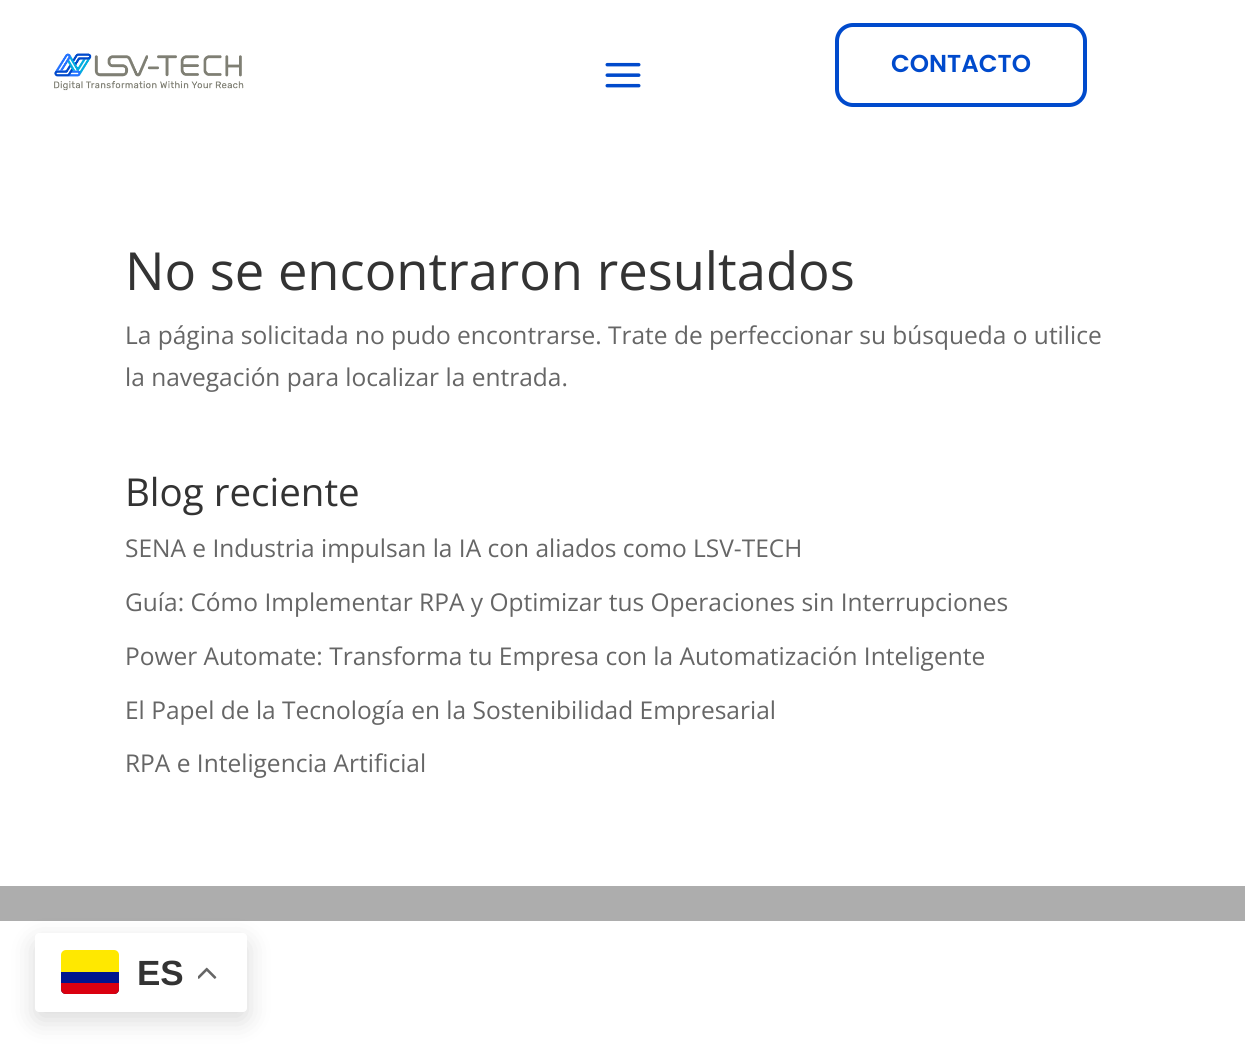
import math
import cairocffi as cairo

surface = cairo.ImageSurface(cairo.FORMAT_RGB24, 1245, 1058)
cr = cairo.Context(surface)
options = cairo.FontOptions()
options.set_hint_metrics(cairo.HINT_METRICS_OFF)
options.set_hint_style(cairo.HINT_STYLE_NONE)
cr.set_font_options(options)
cr.set_miter_limit(4)


def use_color(code):
    cr.set_source_rgb(*(v / 255 for v in bytes.fromhex(code[-6:])))


def round_rect(x, y, w, h, r):
    cr.new_sub_path()
    for i, (u, v) in enumerate([(x + w - r, y + h - r), (x + r, y + h - r), (x + r, y + r), (x + w - r, y + r)]):
        cr.arc(u, v, r, i * math.pi / 2, (i + 1) * math.pi / 2)
    cr.close_path()


def shadow(x, y, w, h, r, blur, alpha):
    cr.push_group_with_content(cairo.CONTENT_ALPHA)
    cr.set_operator(cairo.OPERATOR_SOURCE)
    for i in range(15, -16, -2):
        e = blur * i / 6
        if min(w, h) + 2 * e > 0:
            cr.set_source_rgba(0, 0, 0, alpha * math.erfc((i - 1) / 8.5) / 2)
            round_rect(x - e, y - e, w + 2 * e, h + 2 * e, max(0, min(r + e + blur * .6, min(w, h) / 2 + e)))
            cr.fill()
    cr.mask(cr.pop_group())


def picture(path, x, y, w, h):
    cr.save()
    cr.set_source_surface(cairo.ImageSurface.create_from_png(path), x, y)
    cr.rectangle(x, y, w, h)
    cr.fill()
    cr.restore()


use_color("#ffffff")
cr.paint()
picture("img1.png", 54, 53, 190, 38)
picture("img2.png", 605, 62, 36, 26)
round_rect(837, 25, 248, 80, 16)
use_color("#004acc")
cr.set_line_width(4)
cr.stroke()
cr.select_font_face("Poppins SemiBold")
cr.set_font_size(24.5)
cr.move_to(891, 72)
cr.show_text("CONTACTO")
cr.select_font_face("Open Sans")
cr.set_font_size(52.5)
use_color("#333333")
cr.move_to(125, 290)
cr.show_text("No se encontraron resultados")
cr.set_font_size(24.5)
use_color("#666666")
cr.move_to(125, 344)
cr.show_text("La página solicitada no pudo encontrarse. Trate de perfeccionar su búsqueda o utilice")
cr.move_to(125, 386)
cr.show_text("la navegación para localizar la entrada.")
cr.set_font_size(38.5)
use_color("#333333")
cr.move_to(125, 506)
cr.show_text("Blog reciente")
cr.set_font_size(24.5)
use_color("#666666")
cr.move_to(125, 557)
cr.show_text("SENA e Industria impulsan la IA con aliados como LSV-TECH")
cr.move_to(125, 611)
cr.show_text("Guía: Cómo Implementar RPA y Optimizar tus Operaciones sin Interrupciones")
cr.move_to(125, 665)
cr.show_text("Power Automate: Transforma tu Empresa con la Automatización Inteligente")
cr.move_to(125, 719)
cr.show_text("El Papel de la Tecnología en la Sostenibilidad Empresarial")
cr.move_to(125, 772)
cr.show_text("RPA e Inteligencia Artificial")
use_color("#adadad")
cr.rectangle(0, 886, 1245, 35)
cr.fill()
use_color("#000000")
shadow(35, 942, 212, 78, 4, 13, 0.15)
use_color("#ffffff")
round_rect(35, 933, 212, 79, 4)
cr.fill()
use_color("#ffe800")
round_rect(61, 950, 58, 44, 5)
cr.fill()
use_color("#00148e")
cr.new_path()
cr.move_to(61, 972)
cr.line_to(119, 972)
cr.line_to(119, 989)
cr.curve_to(119, 992, 117, 994, 114, 994)
cr.line_to(66, 994)
cr.curve_to(63, 994, 61, 992, 61, 989)
cr.close_path()
cr.fill()
use_color("#da0010")
cr.new_path()
cr.move_to(61, 983)
cr.line_to(119, 983)
cr.line_to(119, 989)
cr.curve_to(119, 992, 117, 994, 114, 994)
cr.line_to(66, 994)
cr.curve_to(63, 994, 61, 992, 61, 989)
cr.close_path()
cr.fill()
cr.select_font_face("Liberation Sans", cairo.FONT_SLANT_NORMAL, cairo.FONT_WEIGHT_BOLD)
cr.set_font_size(35)
use_color("#333333")
cr.move_to(137, 985)
cr.show_text("ES")
picture("img3.png", 198, 967, 19, 12)
surface.write_to_png("result.png")
